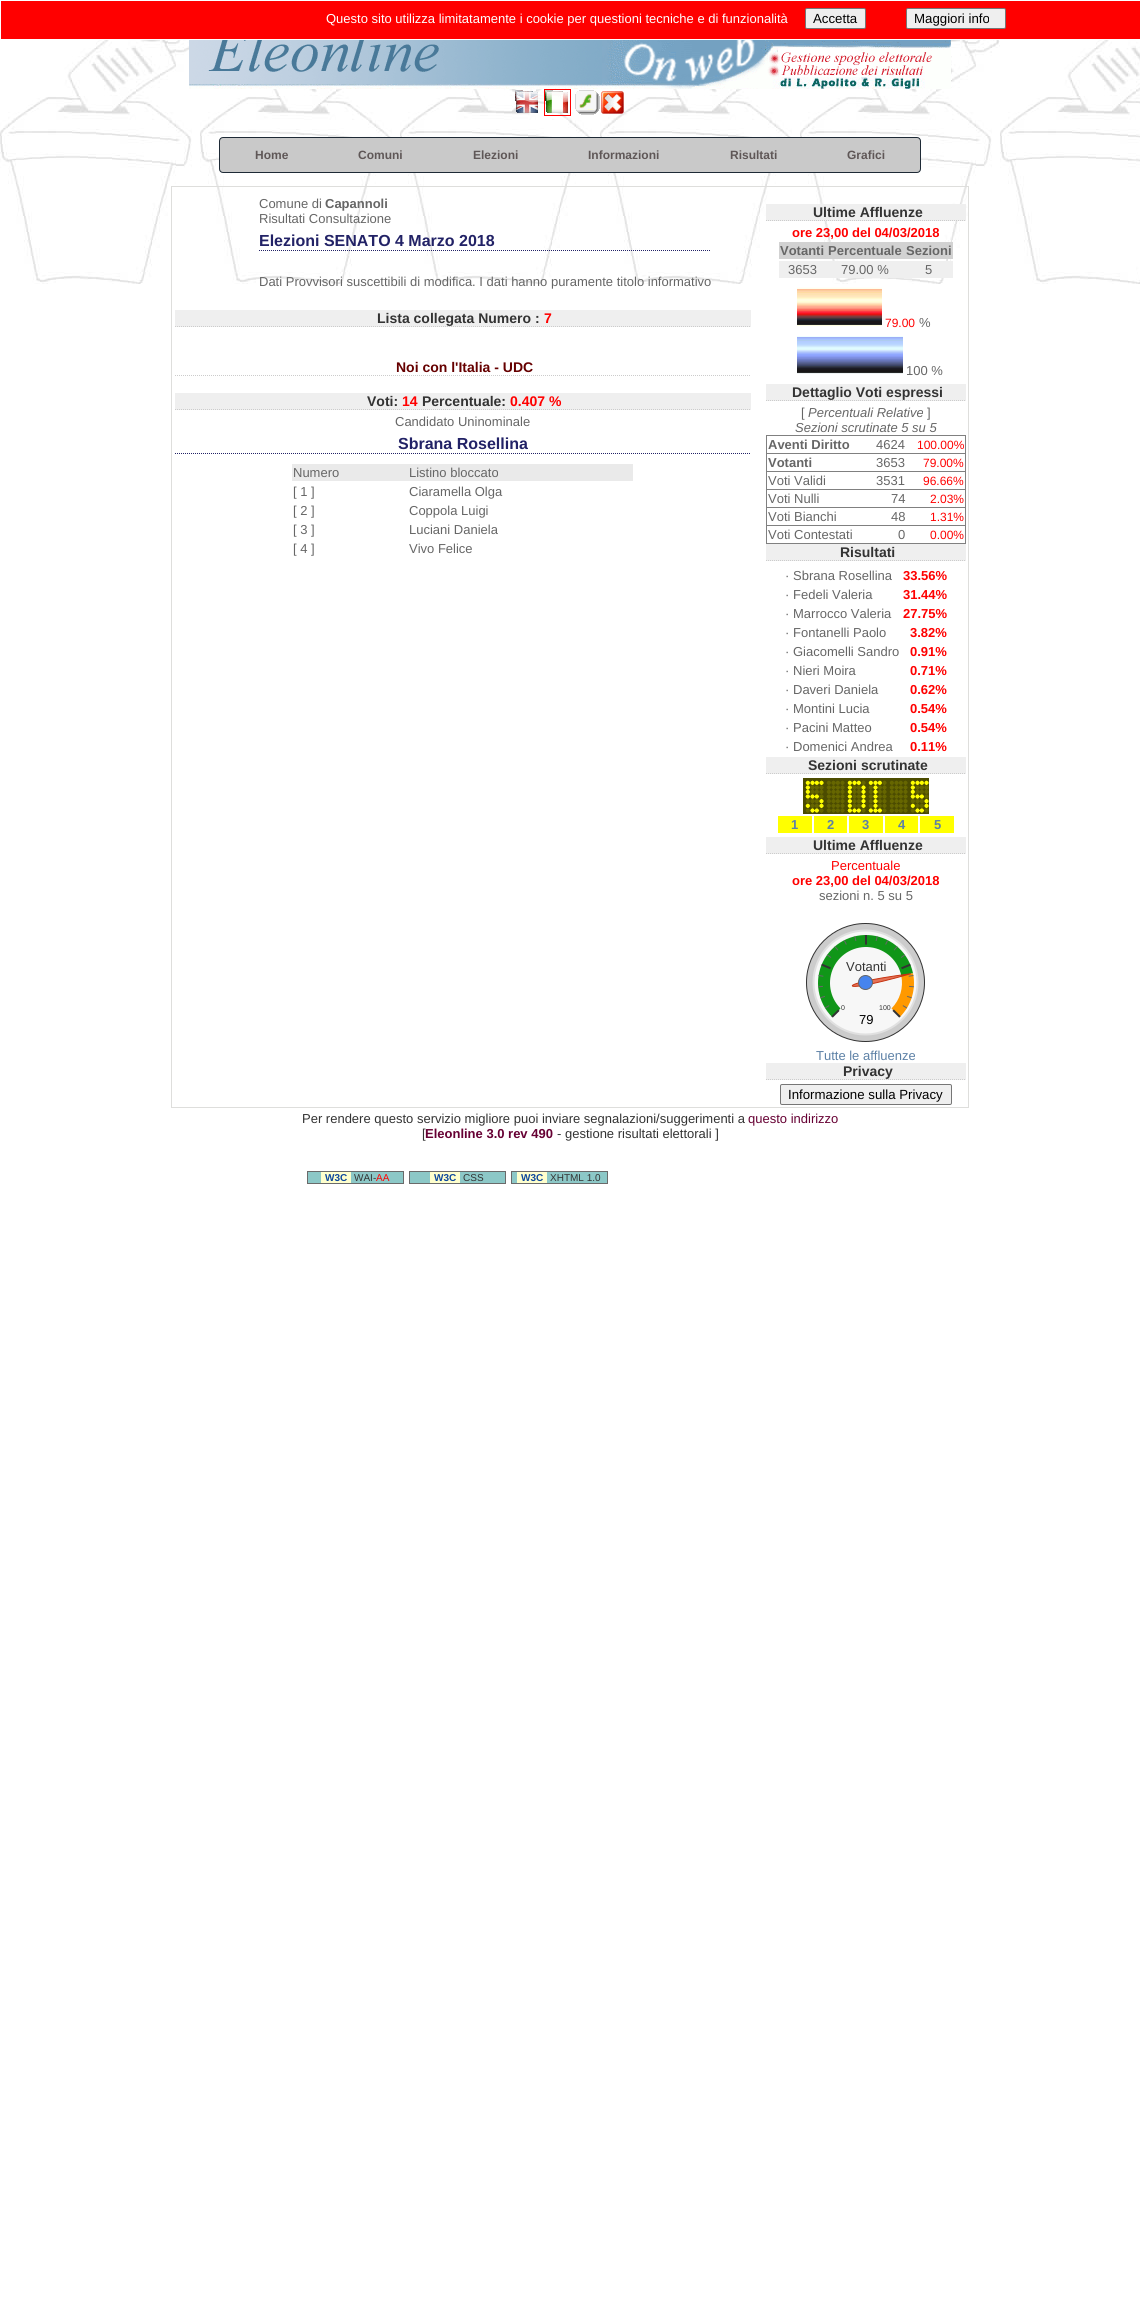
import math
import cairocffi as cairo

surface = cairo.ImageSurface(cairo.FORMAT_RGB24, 1140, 2308)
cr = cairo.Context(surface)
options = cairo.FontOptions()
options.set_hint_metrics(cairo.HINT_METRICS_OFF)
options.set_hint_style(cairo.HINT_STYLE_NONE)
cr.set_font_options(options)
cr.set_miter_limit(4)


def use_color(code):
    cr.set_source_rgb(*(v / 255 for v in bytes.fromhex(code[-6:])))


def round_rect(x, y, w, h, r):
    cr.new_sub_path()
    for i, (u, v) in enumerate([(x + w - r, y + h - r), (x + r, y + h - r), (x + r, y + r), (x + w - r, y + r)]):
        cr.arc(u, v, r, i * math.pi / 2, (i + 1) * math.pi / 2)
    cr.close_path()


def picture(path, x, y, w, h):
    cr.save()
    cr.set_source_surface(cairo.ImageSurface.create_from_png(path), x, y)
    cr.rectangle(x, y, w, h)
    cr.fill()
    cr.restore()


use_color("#ffffff")
cr.paint()
picture("img1.png", 0, 40, 1140, 244)
cr.rectangle(171.5, 186.5, 797, 921)
use_color("#dededc")
cr.set_line_width(1)
cr.stroke()
use_color("#ff0000")
cr.rectangle(1, 1, 1139, 38)
cr.fill()
cr.select_font_face("Liberation Sans")
cr.set_font_size(13)
use_color("#ffffff")
cr.move_to(326, 23)
cr.show_text("Questo sito utilizza limitatamente i cookie per questioni tecniche e di funzionalità")
use_color("#efefef")
round_rect(805.5, 8.5, 60, 20, 1.5)
cr.fill_preserve()
use_color("#767676")
cr.stroke()
cr.set_font_size(13.25)
use_color("#000000")
cr.move_to(813, 23)
cr.show_text("Accetta")
use_color("#efefef")
round_rect(906.5, 8.5, 99, 20, 1.5)
cr.fill_preserve()
use_color("#767676")
cr.stroke()
use_color("#000000")
cr.move_to(914, 23)
cr.show_text("Maggiori info")
use_color("#efefef")
cr.rectangle(766, 204, 200, 17)
cr.fill()
cr.new_path()
cr.move_to(766, 220.5)
cr.line_to(966, 220.5)
use_color("#cccccc")
cr.set_dash([1, 1])
cr.stroke()
cr.select_font_face("Liberation Sans", cairo.FONT_SLANT_NORMAL, cairo.FONT_WEIGHT_BOLD)
cr.set_font_size(14)
use_color("#333333")
cr.move_to(813, 217)
cr.show_text("Ultime Affluenze")
cr.set_font_size(13)
use_color("#ff0000")
cr.move_to(792, 237)
cr.show_text("ore 23,00 del 04/03/2018")
use_color("#d2d2d2")
cr.rectangle(779, 242, 174, 17)
cr.fill()
use_color("#666666")
cr.move_to(780, 255)
cr.show_text("Votanti")
cr.move_to(828, 255)
cr.show_text("Percentuale")
cr.move_to(906, 255)
cr.show_text("Sezioni")
use_color("#efefef")
cr.rectangle(779, 261, 174, 17)
cr.fill()
cr.select_font_face("Liberation Sans")
use_color("#666666")
cr.move_to(788, 274)
cr.show_text("3653")
cr.move_to(841, 274)
cr.show_text("79.00 %")
cr.move_to(925, 274)
cr.show_text("5")
picture("img2.png", 797, 287, 3, 39)
picture("img3.png", 800, 287, 79, 39)
picture("img2.png", 879, 287, 3, 39)
cr.set_font_size(12)
use_color("#ff0000")
cr.move_to(885, 327)
cr.show_text("79.00")
cr.set_font_size(13)
use_color("#666666")
cr.move_to(919, 327)
cr.show_text("%")
picture("img4.png", 797, 336, 3, 38)
picture("img5.png", 800, 336, 100, 38)
picture("img4.png", 900, 336, 3, 38)
cr.move_to(906, 375)
cr.show_text("100 %")
use_color("#efefef")
cr.rectangle(766, 384, 200, 17)
cr.fill()
cr.new_path()
cr.move_to(766, 400.5)
cr.line_to(966, 400.5)
use_color("#cccccc")
cr.stroke()
cr.select_font_face("Liberation Sans", cairo.FONT_SLANT_NORMAL, cairo.FONT_WEIGHT_BOLD)
cr.set_font_size(14)
use_color("#333333")
cr.move_to(792, 397)
cr.show_text("Dettaglio Voti espressi")
cr.select_font_face("Liberation Sans")
cr.set_font_size(13)
use_color("#666666")
cr.move_to(801, 417)
cr.show_text("[")
cr.select_font_face("Liberation Sans", cairo.FONT_SLANT_ITALIC)
cr.move_to(808, 417)
cr.show_text("Percentuali Relative")
cr.select_font_face("Liberation Sans")
cr.move_to(927, 417)
cr.show_text("]")
cr.select_font_face("Liberation Sans", cairo.FONT_SLANT_ITALIC)
cr.move_to(795, 432)
cr.show_text("Sezioni scrutinate 5 su 5")
use_color("#808080")
cr.rectangle(766, 435, 200, 109)
cr.fill()
use_color("#ffffff")
cr.rectangle(767, 436, 198, 17)
cr.fill()
cr.select_font_face("Liberation Sans", cairo.FONT_SLANT_NORMAL, cairo.FONT_WEIGHT_BOLD)
use_color("#666666")
cr.move_to(768, 449)
cr.show_text("Aventi Diritto")
cr.select_font_face("Liberation Sans")
cr.move_to(876, 449)
cr.show_text("4624")
cr.set_font_size(12)
use_color("#ff0000")
cr.move_to(917, 449)
cr.show_text("100.00%")
use_color("#ffffff")
cr.rectangle(767, 454, 198, 17)
cr.fill()
cr.select_font_face("Liberation Sans", cairo.FONT_SLANT_NORMAL, cairo.FONT_WEIGHT_BOLD)
cr.set_font_size(13)
use_color("#666666")
cr.move_to(768, 467)
cr.show_text("Votanti")
cr.select_font_face("Liberation Sans")
cr.move_to(876, 467)
cr.show_text("3653")
cr.set_font_size(12)
use_color("#ff0000")
cr.move_to(923, 467)
cr.show_text("79.00%")
use_color("#ffffff")
cr.rectangle(767, 472, 198, 17)
cr.fill()
cr.set_font_size(13)
use_color("#666666")
cr.move_to(768, 485)
cr.show_text("Voti Validi")
cr.move_to(876, 485)
cr.show_text("3531")
cr.set_font_size(12)
use_color("#ff0000")
cr.move_to(923, 485)
cr.show_text("96.66%")
use_color("#ffffff")
cr.rectangle(767, 490, 198, 17)
cr.fill()
cr.set_font_size(13)
use_color("#666666")
cr.move_to(768, 503)
cr.show_text("Voti Nulli")
cr.move_to(891, 503)
cr.show_text("74")
cr.set_font_size(12)
use_color("#ff0000")
cr.move_to(930, 503)
cr.show_text("2.03%")
use_color("#ffffff")
cr.rectangle(767, 508, 198, 17)
cr.fill()
cr.set_font_size(13)
use_color("#666666")
cr.move_to(768, 521)
cr.show_text("Voti Bianchi")
cr.move_to(891, 521)
cr.show_text("48")
cr.set_font_size(12)
use_color("#ff0000")
cr.move_to(930, 521)
cr.show_text("1.31%")
use_color("#ffffff")
cr.rectangle(767, 526, 198, 17)
cr.fill()
cr.set_font_size(13)
use_color("#666666")
cr.move_to(768, 539)
cr.show_text("Voti Contestati")
cr.move_to(898, 539)
cr.show_text("0")
cr.set_font_size(12)
use_color("#ff0000")
cr.move_to(930, 539)
cr.show_text("0.00%")
use_color("#efefef")
cr.rectangle(766, 544, 200, 17)
cr.fill()
cr.new_path()
cr.move_to(766, 560.5)
cr.line_to(966, 560.5)
use_color("#cccccc")
cr.stroke()
cr.select_font_face("Liberation Sans", cairo.FONT_SLANT_NORMAL, cairo.FONT_WEIGHT_BOLD)
cr.set_font_size(14)
use_color("#333333")
cr.move_to(840, 557)
cr.show_text("Risultati")
cr.select_font_face("Liberation Sans")
cr.set_font_size(13)
use_color("#666666")
cr.move_to(785, 580)
cr.show_text("·")
cr.move_to(793, 580)
cr.show_text("Sbrana Rosellina")
cr.select_font_face("Liberation Sans", cairo.FONT_SLANT_NORMAL, cairo.FONT_WEIGHT_BOLD)
use_color("#ff0000")
cr.move_to(903, 580)
cr.show_text("33.56%")
cr.select_font_face("Liberation Sans")
use_color("#666666")
cr.move_to(785, 599)
cr.show_text("·")
cr.move_to(793, 599)
cr.show_text("Fedeli Valeria")
cr.select_font_face("Liberation Sans", cairo.FONT_SLANT_NORMAL, cairo.FONT_WEIGHT_BOLD)
use_color("#ff0000")
cr.move_to(903, 599)
cr.show_text("31.44%")
cr.select_font_face("Liberation Sans")
use_color("#666666")
cr.move_to(785, 618)
cr.show_text("·")
cr.move_to(793, 618)
cr.show_text("Marrocco Valeria")
cr.select_font_face("Liberation Sans", cairo.FONT_SLANT_NORMAL, cairo.FONT_WEIGHT_BOLD)
use_color("#ff0000")
cr.move_to(903, 618)
cr.show_text("27.75%")
cr.select_font_face("Liberation Sans")
use_color("#666666")
cr.move_to(785, 637)
cr.show_text("·")
cr.move_to(793, 637)
cr.show_text("Fontanelli Paolo")
cr.select_font_face("Liberation Sans", cairo.FONT_SLANT_NORMAL, cairo.FONT_WEIGHT_BOLD)
use_color("#ff0000")
cr.move_to(910, 637)
cr.show_text("3.82%")
cr.select_font_face("Liberation Sans")
use_color("#666666")
cr.move_to(785, 656)
cr.show_text("·")
cr.move_to(793, 656)
cr.show_text("Giacomelli Sandro")
cr.select_font_face("Liberation Sans", cairo.FONT_SLANT_NORMAL, cairo.FONT_WEIGHT_BOLD)
use_color("#ff0000")
cr.move_to(910, 656)
cr.show_text("0.91%")
cr.select_font_face("Liberation Sans")
use_color("#666666")
cr.move_to(785, 675)
cr.show_text("·")
cr.move_to(793, 675)
cr.show_text("Nieri Moira")
cr.select_font_face("Liberation Sans", cairo.FONT_SLANT_NORMAL, cairo.FONT_WEIGHT_BOLD)
use_color("#ff0000")
cr.move_to(910, 675)
cr.show_text("0.71%")
cr.select_font_face("Liberation Sans")
use_color("#666666")
cr.move_to(785, 694)
cr.show_text("·")
cr.move_to(793, 694)
cr.show_text("Daveri Daniela")
cr.select_font_face("Liberation Sans", cairo.FONT_SLANT_NORMAL, cairo.FONT_WEIGHT_BOLD)
use_color("#ff0000")
cr.move_to(910, 694)
cr.show_text("0.62%")
cr.select_font_face("Liberation Sans")
use_color("#666666")
cr.move_to(785, 713)
cr.show_text("·")
cr.move_to(793, 713)
cr.show_text("Montini Lucia")
cr.select_font_face("Liberation Sans", cairo.FONT_SLANT_NORMAL, cairo.FONT_WEIGHT_BOLD)
use_color("#ff0000")
cr.move_to(910, 713)
cr.show_text("0.54%")
cr.select_font_face("Liberation Sans")
use_color("#666666")
cr.move_to(785, 732)
cr.show_text("·")
cr.move_to(793, 732)
cr.show_text("Pacini Matteo")
cr.select_font_face("Liberation Sans", cairo.FONT_SLANT_NORMAL, cairo.FONT_WEIGHT_BOLD)
use_color("#ff0000")
cr.move_to(910, 732)
cr.show_text("0.54%")
cr.select_font_face("Liberation Sans")
use_color("#666666")
cr.move_to(785, 751)
cr.show_text("·")
cr.move_to(793, 751)
cr.show_text("Domenici Andrea")
cr.select_font_face("Liberation Sans", cairo.FONT_SLANT_NORMAL, cairo.FONT_WEIGHT_BOLD)
use_color("#ff0000")
cr.move_to(910, 751)
cr.show_text("0.11%")
use_color("#efefef")
cr.rectangle(766, 757, 200, 17)
cr.fill()
cr.new_path()
cr.move_to(766, 773.5)
cr.line_to(966, 773.5)
use_color("#cccccc")
cr.stroke()
cr.set_font_size(14)
use_color("#333333")
cr.move_to(808, 770)
cr.show_text("Sezioni scrutinate")
picture("img6.png", 803, 778, 126, 36)
use_color("#ffff00")
cr.rectangle(778, 816, 34, 17)
cr.fill()
cr.set_font_size(13)
use_color("#5d81a6")
cr.move_to(791, 829)
cr.show_text("1")
use_color("#ffff00")
cr.rectangle(814, 816, 33, 17)
cr.fill()
use_color("#5d81a6")
cr.move_to(827, 829)
cr.show_text("2")
use_color("#ffff00")
cr.rectangle(849, 816, 34, 17)
cr.fill()
use_color("#5d81a6")
cr.move_to(862, 829)
cr.show_text("3")
use_color("#ffff00")
cr.rectangle(885, 816, 33, 17)
cr.fill()
use_color("#5d81a6")
cr.move_to(898, 829)
cr.show_text("4")
use_color("#ffff00")
cr.rectangle(920, 816, 34, 17)
cr.fill()
use_color("#5d81a6")
cr.move_to(934, 829)
cr.show_text("5")
use_color("#efefef")
cr.rectangle(766, 837, 200, 17)
cr.fill()
cr.new_path()
cr.move_to(766, 853.5)
cr.line_to(966, 853.5)
use_color("#cccccc")
cr.stroke()
cr.set_font_size(14)
use_color("#333333")
cr.move_to(813, 850)
cr.show_text("Ultime Affluenze")
cr.select_font_face("Liberation Sans")
cr.set_font_size(13)
use_color("#ff0000")
cr.move_to(831, 870)
cr.show_text("Percentuale")
cr.select_font_face("Liberation Sans", cairo.FONT_SLANT_NORMAL, cairo.FONT_WEIGHT_BOLD)
cr.move_to(792, 885)
cr.show_text("ore 23,00 del 04/03/2018")
cr.select_font_face("Liberation Sans")
use_color("#666666")
cr.move_to(819, 900)
cr.show_text("sezioni n. 5 su 5")
picture("img7.png", 806, 923, 119, 119)
use_color("#333333")
cr.move_to(846, 971)
cr.show_text("Votanti")
cr.set_font_size(7)
cr.move_to(841, 1010)
cr.show_text("0")
cr.move_to(879, 1010)
cr.show_text("100")
cr.set_font_size(13)
use_color("#000000")
cr.move_to(859, 1024)
cr.show_text("79")
use_color("#5d81a6")
cr.move_to(816, 1060)
cr.show_text("Tutte le affluenze")
use_color("#efefef")
cr.rectangle(766, 1063, 200, 17)
cr.fill()
cr.new_path()
cr.move_to(766, 1079.5)
cr.line_to(966, 1079.5)
use_color("#cccccc")
cr.stroke()
cr.select_font_face("Liberation Sans", cairo.FONT_SLANT_NORMAL, cairo.FONT_WEIGHT_BOLD)
cr.set_font_size(14)
use_color("#333333")
cr.move_to(843, 1076)
cr.show_text("Privacy")
use_color("#efefef")
round_rect(780.5, 1084.5, 171, 20, 1.5)
cr.fill_preserve()
use_color("#767676")
cr.set_dash([])
cr.stroke()
cr.select_font_face("Liberation Sans")
cr.set_font_size(13.25)
use_color("#000000")
cr.move_to(788, 1099)
cr.show_text("Informazione sulla Privacy")
cr.set_font_size(13)
use_color("#666666")
cr.move_to(259, 208)
cr.show_text("Comune di")
cr.select_font_face("Liberation Sans", cairo.FONT_SLANT_NORMAL, cairo.FONT_WEIGHT_BOLD)
cr.move_to(325, 208)
cr.show_text("Capannoli")
cr.select_font_face("Liberation Sans")
cr.move_to(259, 223)
cr.show_text("Risultati Consultazione")
cr.new_path()
cr.move_to(259, 250.5)
cr.line_to(711, 250.5)
use_color("#222266")
cr.set_dash([1, 1])
cr.stroke()
cr.select_font_face("Liberation Sans", cairo.FONT_SLANT_NORMAL, cairo.FONT_WEIGHT_BOLD)
cr.set_font_size(16)
cr.move_to(259, 246)
cr.show_text("Elezioni SENATO 4 Marzo 2018")
cr.select_font_face("Liberation Sans")
cr.set_font_size(13)
use_color("#666666")
cr.move_to(259, 286)
cr.show_text("Dati Provvisori suscettibili di modifica. I dati hanno puramente titolo informativo")
use_color("#efefef")
cr.rectangle(175, 310, 576, 17)
cr.fill()
cr.new_path()
cr.move_to(175, 326.5)
cr.line_to(751, 326.5)
use_color("#cccccc")
cr.stroke()
cr.select_font_face("Liberation Sans", cairo.FONT_SLANT_NORMAL, cairo.FONT_WEIGHT_BOLD)
cr.set_font_size(14)
use_color("#333333")
cr.move_to(377, 323)
cr.show_text("Lista collegata Numero :")
use_color("#ff0000")
cr.move_to(544, 323)
cr.show_text("7")
cr.new_path()
cr.move_to(175, 375.5)
cr.line_to(751, 375.5)
use_color("#cccccc")
cr.stroke()
use_color("#660000")
cr.move_to(396, 372)
cr.show_text("Noi con l'Italia - UDC")
use_color("#efefef")
cr.rectangle(175, 393, 576, 17)
cr.fill()
cr.new_path()
cr.move_to(175, 409.5)
cr.line_to(751, 409.5)
use_color("#cccccc")
cr.stroke()
use_color("#333333")
cr.move_to(367, 406)
cr.show_text("Voti:")
use_color("#ff0000")
cr.move_to(402, 406)
cr.show_text("14")
use_color("#333333")
cr.move_to(422, 406)
cr.show_text("Percentuale:")
use_color("#ff0000")
cr.move_to(510, 406)
cr.show_text("0.407 %")
cr.select_font_face("Liberation Sans")
cr.set_font_size(13)
use_color("#666666")
cr.move_to(395, 426)
cr.show_text("Candidato Uninominale")
cr.new_path()
cr.move_to(175, 453.5)
cr.line_to(751, 453.5)
use_color("#222266")
cr.stroke()
cr.select_font_face("Liberation Sans", cairo.FONT_SLANT_NORMAL, cairo.FONT_WEIGHT_BOLD)
cr.set_font_size(16)
cr.move_to(398, 449)
cr.show_text("Sbrana Rosellina")
use_color("#eaeaea")
cr.rectangle(292, 464, 341, 17)
cr.fill()
cr.select_font_face("Liberation Sans")
cr.set_font_size(13)
use_color("#666666")
cr.move_to(293, 477)
cr.show_text("Numero")
cr.move_to(409, 477)
cr.show_text("Listino bloccato")
cr.move_to(293, 496)
cr.show_text("[ 1 ]")
cr.move_to(409, 496)
cr.show_text("Ciaramella Olga")
cr.move_to(293, 515)
cr.show_text("[ 2 ]")
cr.move_to(409, 515)
cr.show_text("Coppola Luigi")
cr.move_to(293, 534)
cr.show_text("[ 3 ]")
cr.move_to(409, 534)
cr.show_text("Luciani Daniela")
cr.move_to(293, 553)
cr.show_text("[ 4 ]")
cr.move_to(409, 553)
cr.show_text("Vivo Felice")
picture("img8.png", 189, 40, 762, 49)
picture("img9.png", 515, 90, 23, 23)
cr.rectangle(544.5, 89.5, 26, 26)
use_color("#ff0000")
cr.set_dash([])
cr.stroke()
picture("img10.png", 545, 90, 23, 23)
picture("img11.png", 575, 90, 25, 25)
picture("img12.png", 601, 91, 23, 23)
use_color("#c9c9c9")
round_rect(219.5, 137.5, 701, 35, 3.5)
cr.fill_preserve()
use_color("#1e2a36")
cr.stroke()
cr.select_font_face("Liberation Sans", cairo.FONT_SLANT_NORMAL, cairo.FONT_WEIGHT_BOLD)
cr.set_font_size(12)
use_color("#5f5757")
cr.move_to(255, 159)
cr.show_text("Home")
cr.move_to(358, 159)
cr.show_text("Comuni")
cr.move_to(473, 159)
cr.show_text("Elezioni")
cr.move_to(588, 159)
cr.show_text("Informazioni")
cr.move_to(730, 159)
cr.show_text("Risultati")
cr.move_to(847, 159)
cr.show_text("Grafici")
cr.select_font_face("Liberation Sans")
cr.set_font_size(13)
use_color("#333333")
cr.move_to(302, 1123)
cr.show_text("Per rendere questo servizio migliore puoi inviare segnalazioni/suggerimenti a")
use_color("#660033")
cr.move_to(748, 1123)
cr.show_text("questo indirizzo")
use_color("#333333")
cr.move_to(422, 1138)
cr.show_text("[")
cr.select_font_face("Liberation Sans", cairo.FONT_SLANT_NORMAL, cairo.FONT_WEIGHT_BOLD)
use_color("#660033")
cr.move_to(425, 1138)
cr.show_text("Eleonline 3.0 rev 490")
cr.select_font_face("Liberation Sans")
use_color("#333333")
cr.move_to(557, 1138)
cr.show_text("- gestione risultati elettorali ]")
cr.rectangle(307.5, 1171.5, 96, 12)
use_color("#6a6a6a")
cr.stroke()
use_color("#8cc8c7")
cr.rectangle(308, 1172, 95, 11)
cr.fill()
use_color("#ffffcc")
cr.rectangle(321, 1172, 30, 11)
cr.fill()
cr.select_font_face("Liberation Sans", cairo.FONT_SLANT_NORMAL, cairo.FONT_WEIGHT_BOLD)
cr.set_font_size(10)
use_color("#0c479d")
cr.move_to(325, 1181)
cr.show_text("W3C")
cr.select_font_face("Liberation Sans")
use_color("#333333")
cr.move_to(354, 1181)
cr.show_text("WAI-")
use_color("#ff0000")
cr.move_to(376, 1181)
cr.show_text("AA")
cr.rectangle(409.5, 1171.5, 96, 12)
use_color("#6a6a6a")
cr.stroke()
use_color("#8cc8c7")
cr.rectangle(410, 1172, 95, 11)
cr.fill()
use_color("#ffffcc")
cr.rectangle(430, 1172, 30, 11)
cr.fill()
cr.select_font_face("Liberation Sans", cairo.FONT_SLANT_NORMAL, cairo.FONT_WEIGHT_BOLD)
use_color("#0c479d")
cr.move_to(434, 1181)
cr.show_text("W3C")
cr.select_font_face("Liberation Sans")
use_color("#333333")
cr.move_to(463, 1181)
cr.show_text("CSS")
cr.rectangle(511.5, 1171.5, 96, 12)
use_color("#6a6a6a")
cr.stroke()
use_color("#8cc8c7")
cr.rectangle(512, 1172, 95, 11)
cr.fill()
use_color("#ffffcc")
cr.rectangle(517, 1172, 30, 11)
cr.fill()
cr.select_font_face("Liberation Sans", cairo.FONT_SLANT_NORMAL, cairo.FONT_WEIGHT_BOLD)
use_color("#0c479d")
cr.move_to(521, 1181)
cr.show_text("W3C")
cr.select_font_face("Liberation Sans")
use_color("#333333")
cr.move_to(550, 1181)
cr.show_text("XHTML 1.0")
surface.write_to_png("result.png")
